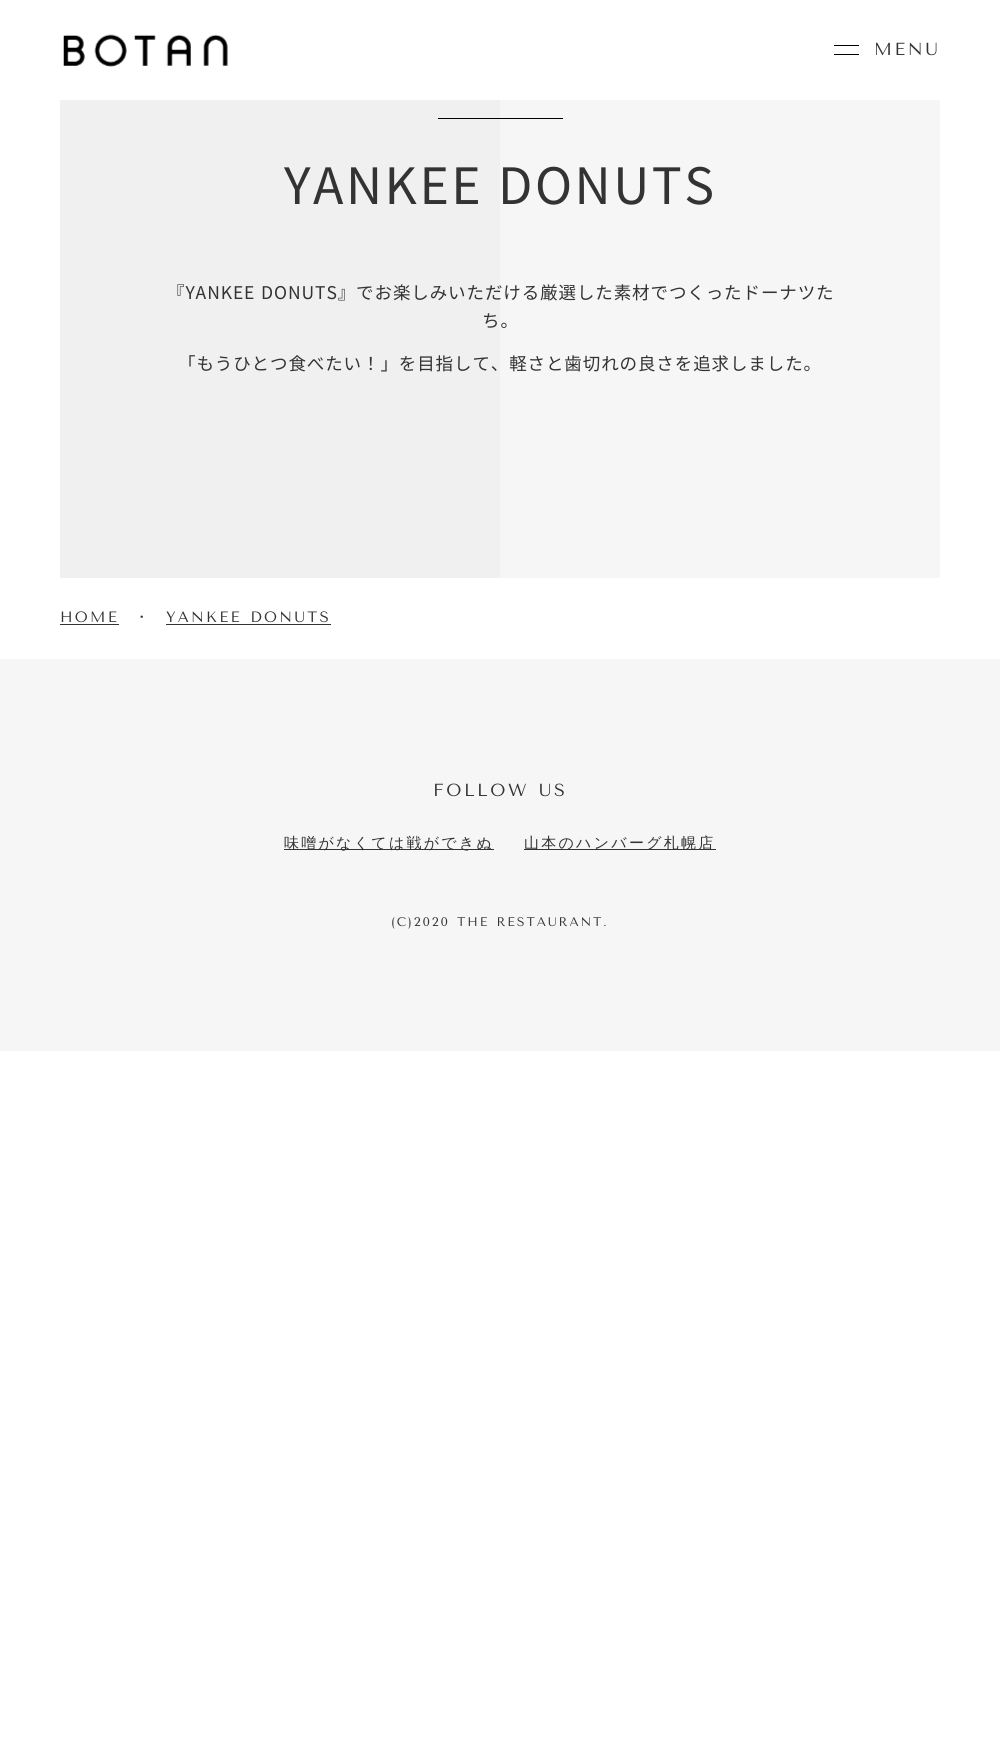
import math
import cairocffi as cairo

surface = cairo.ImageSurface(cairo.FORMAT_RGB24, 1000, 1759)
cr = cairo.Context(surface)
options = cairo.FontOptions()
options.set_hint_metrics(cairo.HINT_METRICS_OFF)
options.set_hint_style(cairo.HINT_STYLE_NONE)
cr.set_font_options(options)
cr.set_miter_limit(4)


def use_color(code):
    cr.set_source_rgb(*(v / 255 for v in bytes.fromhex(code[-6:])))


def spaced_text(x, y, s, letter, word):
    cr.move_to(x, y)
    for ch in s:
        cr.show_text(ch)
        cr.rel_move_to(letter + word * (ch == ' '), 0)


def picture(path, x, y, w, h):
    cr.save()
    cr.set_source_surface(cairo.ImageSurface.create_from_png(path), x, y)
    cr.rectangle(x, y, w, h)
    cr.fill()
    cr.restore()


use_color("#ffffff")
cr.paint()
picture("img1.png", 63, 34, 165, 33)
use_color("#000000")
cr.rectangle(834, 45, 25, 1)
cr.fill()
cr.rectangle(834, 54, 25, 1)
cr.fill()
cr.select_font_face("Tenor Sans")
cr.set_font_size(17.5)
use_color("#333333")
spaced_text(874, 55, "MENU", 2.6, 0)
use_color("#f6f6f6")
cr.rectangle(500, 100, 440, 478)
cr.fill()
use_color("#f0f0f0")
cr.rectangle(60, 100, 440, 478)
cr.fill()
use_color("#000000")
cr.rectangle(438, 118, 125, 1)
cr.fill()
cr.select_font_face("Noto Sans JP")
cr.set_font_size(50)
use_color("#333333")
spaced_text(284, 204, "YANKEE DONUTS", 2.5, 1)
cr.set_font_size(17.5)
spaced_text(167, 299, "『YANKEE DONUTS』でお楽しみいただける厳選した素材でつくったドーナツた", 0.9, 1)
spaced_text(482, 327, "ち。", 0.9, 0)
spaced_text(178, 370, "「もうひとつ食べたい！」を目指して、軽さと歯切れの良さを追求しました。", 0.9, 0)
cr.select_font_face("Tenor Sans")
cr.set_font_size(15)
spaced_text(60, 622, "HOME", 2.25, 0)
cr.rectangle(60, 624, 59, 1)
cr.fill()
cr.select_font_face("WenQuanYi Zen Hei Medium")
spaced_text(134, 622, "・", 2.25, 0)
cr.select_font_face("Tenor Sans")
spaced_text(166, 622, "YANKEE DONUTS", 2.25, 1)
cr.rectangle(166, 624, 165, 1)
cr.fill()
use_color("#f6f6f6")
cr.rectangle(0, 659, 1000, 392)
cr.fill()
cr.set_font_size(17.5)
use_color("#333333")
spaced_text(433, 796, "FOLLOW US", 2.6, 1)
cr.rectangle(284, 849, 210, 1)
cr.fill()
cr.select_font_face("WenQuanYi Zen Hei Medium")
cr.set_font_size(15)
spaced_text(284, 848, "味噌がなくては戦ができぬ", 2.25, 0)
cr.rectangle(524, 849, 192, 1)
cr.fill()
spaced_text(524, 848, "山本のハンバーグ札幌店", 2.25, 0)
cr.select_font_face("Tenor Sans")
cr.set_font_size(12.5)
spaced_text(391, 926, "(C)2020 THE RESTAURANT.", 1.9, 1)
surface.write_to_png("result.png")
